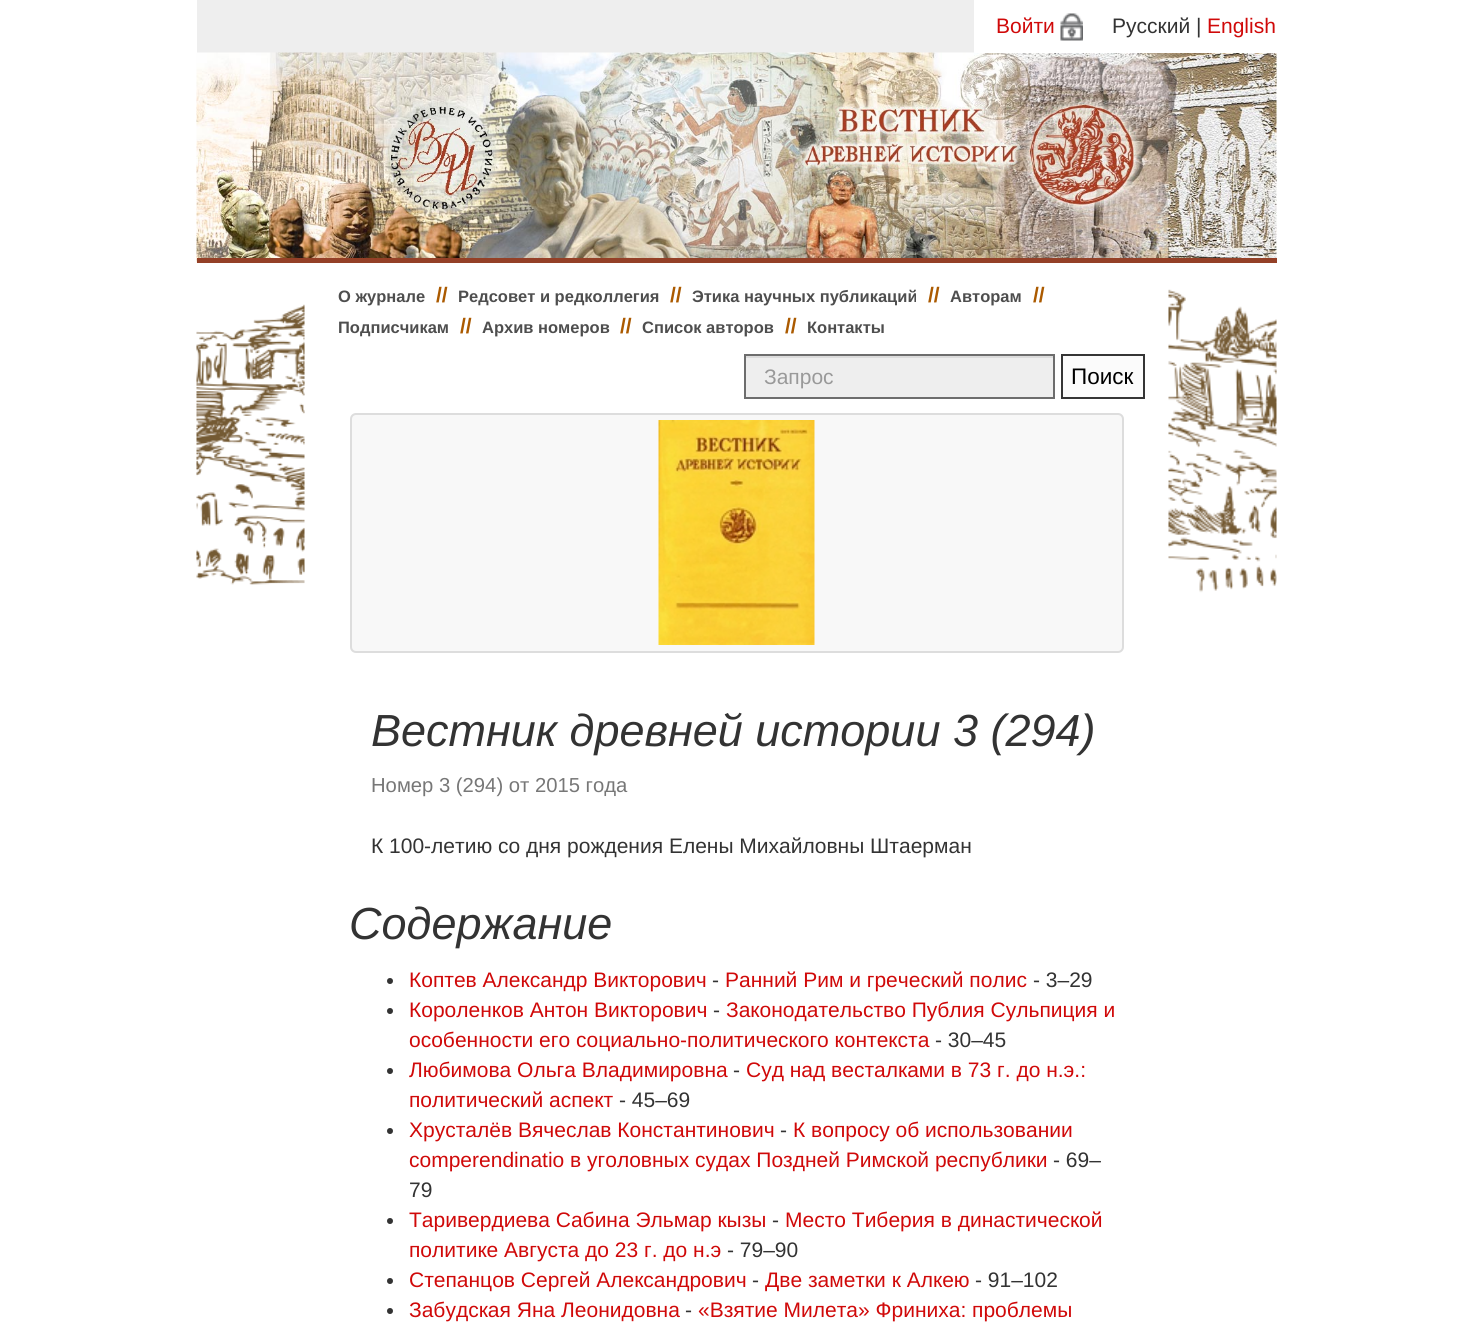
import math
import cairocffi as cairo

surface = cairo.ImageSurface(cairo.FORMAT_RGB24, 1471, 1331)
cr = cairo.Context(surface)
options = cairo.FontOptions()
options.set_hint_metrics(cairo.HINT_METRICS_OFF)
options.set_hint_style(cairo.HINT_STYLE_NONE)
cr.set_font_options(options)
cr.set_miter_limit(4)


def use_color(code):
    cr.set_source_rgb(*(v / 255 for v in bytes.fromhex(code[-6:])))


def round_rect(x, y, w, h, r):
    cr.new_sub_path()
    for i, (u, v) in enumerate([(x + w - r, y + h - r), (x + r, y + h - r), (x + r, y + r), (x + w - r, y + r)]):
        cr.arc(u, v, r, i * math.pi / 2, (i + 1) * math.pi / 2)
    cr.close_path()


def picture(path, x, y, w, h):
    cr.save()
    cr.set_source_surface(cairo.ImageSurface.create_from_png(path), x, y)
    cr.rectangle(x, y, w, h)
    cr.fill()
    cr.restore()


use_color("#ffffff")
cr.paint()
use_color("#eeeeee")
cr.rectangle(197, 0, 777, 53)
cr.fill()
picture("img2.png", 196, 52, 1081, 211)
use_color("#ffffff")
cr.rectangle(975, 52, 302, 1)
cr.fill()
cr.select_font_face("Liberation Sans")
cr.set_font_size(21)
use_color("#d00909")
cr.move_to(996, 33)
cr.show_text("Войти")
picture("img1.png", 1060, 13, 23, 28)
use_color("#333333")
cr.move_to(1112, 33)
cr.show_text("Русский |")
use_color("#d00909")
cr.move_to(1207, 33)
cr.show_text("English")
use_color("#944027")
cr.rectangle(197, 258, 1080, 5)
cr.fill()
picture("img3.png", 196, 304, 109, 281)
cr.select_font_face("Liberation Sans", cairo.FONT_SLANT_NORMAL, cairo.FONT_WEIGHT_BOLD)
cr.set_font_size(16.5)
use_color("#4e4e4e")
cr.move_to(338, 302)
cr.show_text("О журнале")
cr.set_font_size(21)
use_color("#ab5a00")
cr.move_to(436, 302)
cr.show_text("//")
cr.set_font_size(16.5)
use_color("#4e4e4e")
cr.move_to(458, 302)
cr.show_text("Редсовет и редколлегия")
cr.set_font_size(21)
use_color("#ab5a00")
cr.move_to(670, 302)
cr.show_text("//")
cr.set_font_size(16.5)
use_color("#4e4e4e")
cr.move_to(692, 302)
cr.show_text("Этика научных публикаций")
cr.set_font_size(21)
use_color("#ab5a00")
cr.move_to(928, 302)
cr.show_text("//")
cr.set_font_size(16.5)
use_color("#4e4e4e")
cr.move_to(950, 302)
cr.show_text("Авторам")
cr.set_font_size(21)
use_color("#ab5a00")
cr.move_to(1033, 302)
cr.show_text("//")
cr.set_font_size(16.5)
use_color("#4e4e4e")
cr.move_to(338, 333)
cr.show_text("Подписчикам")
cr.set_font_size(21)
use_color("#ab5a00")
cr.move_to(460, 333)
cr.show_text("//")
cr.set_font_size(16.5)
use_color("#4e4e4e")
cr.move_to(482, 333)
cr.show_text("Архив номеров")
cr.set_font_size(21)
use_color("#ab5a00")
cr.move_to(620, 333)
cr.show_text("//")
cr.set_font_size(16.5)
use_color("#4e4e4e")
cr.move_to(642, 333)
cr.show_text("Список авторов")
cr.set_font_size(21)
use_color("#ab5a00")
cr.move_to(785, 333)
cr.show_text("//")
cr.set_font_size(16.5)
use_color("#4e4e4e")
cr.move_to(807, 333)
cr.show_text("Контакты")
use_color("#eeeeee")
cr.rectangle(746, 358, 307, 39)
cr.fill()
use_color("#dcdcdc")
cr.rectangle(746, 356, 307, 2)
cr.fill()
cr.rectangle(745, 355, 309, 43)
use_color("#6d6d6d")
cr.stroke()
cr.select_font_face("Liberation Sans")
cr.set_font_size(21)
use_color("#999999")
cr.move_to(764, 384)
cr.show_text("Запрос")
use_color("#fbfbfb")
cr.rectangle(1062, 355, 82, 43)
cr.fill_preserve()
use_color("#353535")
cr.stroke()
cr.set_font_size(22.5)
use_color("#000000")
cr.move_to(1071, 384)
cr.show_text("Поиск")
use_color("#f8f8f8")
round_rect(351, 414, 772, 238, 5)
cr.fill_preserve()
use_color("#dddddd")
cr.stroke()
picture("img4.png", 658, 420, 157, 225)
cr.select_font_face("Liberation Sans", cairo.FONT_SLANT_ITALIC)
cr.set_font_size(45)
use_color("#333333")
cr.move_to(371, 746)
cr.show_text("Вестник древней истории 3 (294)")
cr.select_font_face("Liberation Sans")
cr.set_font_size(20.25)
use_color("#777777")
cr.move_to(371, 792)
cr.show_text("Номер 3 (294) от 2015 года")
cr.set_font_size(21)
use_color("#333333")
cr.move_to(371, 853)
cr.show_text("К 100-летию со дня рождения Елены Михайловны Штаерман")
cr.select_font_face("Liberation Sans", cairo.FONT_SLANT_ITALIC)
cr.set_font_size(45)
cr.move_to(349, 939)
cr.show_text("Содержание")
cr.new_path()
cr.arc(390, 981, 3, 0, 2 * math.pi)
cr.fill()
cr.select_font_face("Liberation Sans")
cr.set_font_size(21)
use_color("#d00909")
cr.move_to(409, 987)
cr.show_text("Коптев Александр Викторович")
use_color("#333333")
cr.move_to(712, 987)
cr.show_text("-")
use_color("#d00909")
cr.move_to(725, 987)
cr.show_text("Ранний Рим и греческий полис")
use_color("#333333")
cr.move_to(1033, 987)
cr.show_text("- 3–29")
cr.new_path()
cr.arc(390, 1011, 3, 0, 2 * math.pi)
cr.fill()
use_color("#d00909")
cr.move_to(409, 1017)
cr.show_text("Короленков Антон Викторович")
use_color("#333333")
cr.move_to(713, 1017)
cr.show_text("-")
use_color("#d00909")
cr.move_to(726, 1017)
cr.show_text("Законодательство Публия Сульпиция и")
cr.move_to(409, 1047)
cr.show_text("особенности его социально-политического контекста")
use_color("#333333")
cr.move_to(935, 1047)
cr.show_text("- 30–45")
cr.new_path()
cr.arc(390, 1071, 3, 0, 2 * math.pi)
cr.fill()
use_color("#d00909")
cr.move_to(409, 1077)
cr.show_text("Любимова Ольга Владимировна")
use_color("#333333")
cr.move_to(733, 1077)
cr.show_text("-")
use_color("#d00909")
cr.move_to(746, 1077)
cr.show_text("Суд над весталками в 73 г. до н.э.:")
cr.move_to(409, 1107)
cr.show_text("политический аспект")
use_color("#333333")
cr.move_to(619, 1107)
cr.show_text("- 45–69")
cr.new_path()
cr.arc(390, 1131, 3, 0, 2 * math.pi)
cr.fill()
use_color("#d00909")
cr.move_to(409, 1137)
cr.show_text("Хрусталёв Вячеслав Константинович")
use_color("#333333")
cr.move_to(780, 1137)
cr.show_text("-")
use_color("#d00909")
cr.move_to(793, 1137)
cr.show_text("К вопросу об использовании")
cr.move_to(409, 1167)
cr.show_text("comperendinatio в уголовных судах Поздней Римской республики")
use_color("#333333")
cr.move_to(1053, 1167)
cr.show_text("- 69–")
cr.move_to(409, 1197)
cr.show_text("79")
cr.new_path()
cr.arc(390, 1221, 3, 0, 2 * math.pi)
cr.fill()
use_color("#d00909")
cr.move_to(409, 1227)
cr.show_text("Таривердиева Сабина Эльмар кызы")
use_color("#333333")
cr.move_to(772, 1227)
cr.show_text("-")
use_color("#d00909")
cr.move_to(785, 1227)
cr.show_text("Место Тиберия в династической")
cr.move_to(409, 1257)
cr.show_text("политике Августа до 23 г. до н.э")
use_color("#333333")
cr.move_to(727, 1257)
cr.show_text("- 79–90")
cr.new_path()
cr.arc(390, 1281, 3, 0, 2 * math.pi)
cr.fill()
use_color("#d00909")
cr.move_to(409, 1287)
cr.show_text("Степанцов Сергей Александрович")
use_color("#333333")
cr.move_to(752, 1287)
cr.show_text("-")
use_color("#d00909")
cr.move_to(765, 1287)
cr.show_text("Две заметки к Алкею")
use_color("#333333")
cr.move_to(975, 1287)
cr.show_text("- 91–102")
cr.new_path()
cr.arc(390, 1311, 3, 0, 2 * math.pi)
cr.fill()
use_color("#d00909")
cr.move_to(409, 1317)
cr.show_text("Забудская Яна Леонидовна")
use_color("#333333")
cr.move_to(685, 1317)
cr.show_text("-")
use_color("#d00909")
cr.move_to(698, 1317)
cr.show_text("«Взятие Милета» Фриниха: проблемы")
picture("img5.png", 1168, 289, 109, 304)
surface.write_to_png("result.png")
